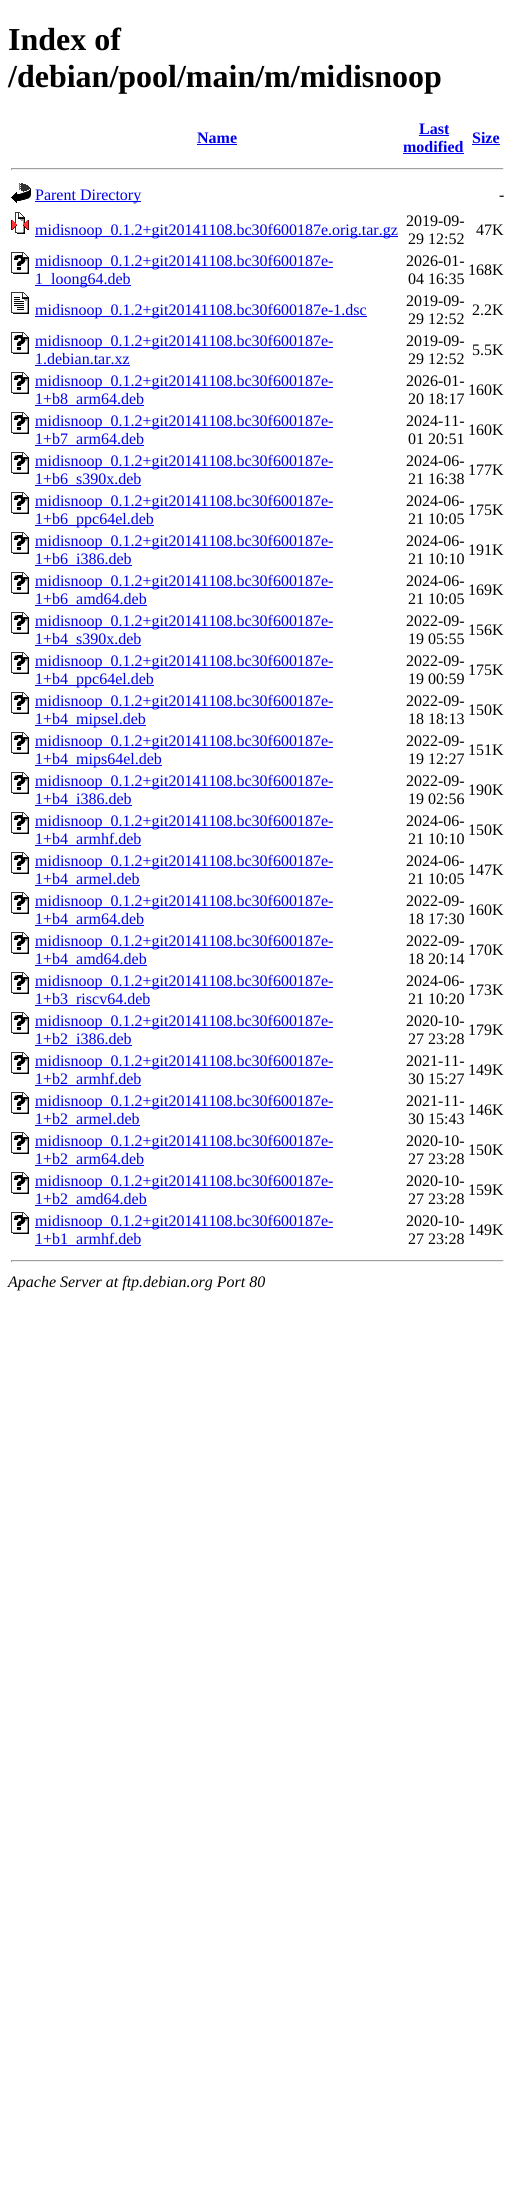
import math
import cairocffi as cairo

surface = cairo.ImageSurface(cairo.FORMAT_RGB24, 515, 2194)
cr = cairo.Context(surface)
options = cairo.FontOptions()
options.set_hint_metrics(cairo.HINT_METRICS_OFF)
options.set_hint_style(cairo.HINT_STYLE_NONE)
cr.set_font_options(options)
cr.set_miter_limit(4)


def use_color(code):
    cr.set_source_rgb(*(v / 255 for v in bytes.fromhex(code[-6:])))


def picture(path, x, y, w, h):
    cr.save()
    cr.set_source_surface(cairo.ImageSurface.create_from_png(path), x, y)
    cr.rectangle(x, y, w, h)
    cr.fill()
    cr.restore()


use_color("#ffffff")
cr.paint()
cr.select_font_face("Liberation Serif", cairo.FONT_SLANT_NORMAL, cairo.FONT_WEIGHT_BOLD)
cr.set_font_size(32)
use_color("#000000")
cr.move_to(8, 50)
cr.show_text("Index of")
cr.move_to(8, 87)
cr.show_text("/debian/pool/main/m/midisnoop")
cr.set_font_size(16)
use_color("#0000ee")
cr.move_to(197, 143)
cr.show_text("Name")
cr.rectangle(197, 144, 40, 1)
cr.fill()
cr.move_to(419, 134)
cr.show_text("Last")
cr.rectangle(419, 135, 30, 1)
cr.fill()
cr.move_to(403, 152)
cr.show_text("modified")
cr.rectangle(403, 153, 61, 1)
cr.fill()
cr.move_to(472, 143)
cr.show_text("Size")
cr.rectangle(472, 144, 28, 1)
cr.fill()
use_color("#9f9f9f")
cr.rectangle(11, 168, 493, 1)
cr.fill()
use_color("#eeeeee")
cr.rectangle(503, 168, 1, 2)
cr.fill()
cr.rectangle(11, 169, 493, 1)
cr.fill()
use_color("#9f9f9f")
cr.rectangle(11, 168, 1, 2)
cr.fill()
picture("img1.png", 11, 183, 20, 20)
use_color("#0000ee")
cr.rectangle(35, 201, 106, 1)
cr.fill()
cr.select_font_face("Liberation Serif")
cr.move_to(35, 200)
cr.show_text("Parent Directory")
use_color("#000000")
cr.move_to(499, 200)
cr.show_text("-")
picture("img2.png", 11, 212, 18, 22)
use_color("#0000ee")
cr.rectangle(35, 236, 363, 1)
cr.fill()
cr.move_to(35, 235)
cr.show_text("midisnoop_0.1.2+git20141108.bc30f600187e.orig.tar.gz")
use_color("#000000")
cr.move_to(406, 226)
cr.show_text("2019-09-")
cr.move_to(408, 244)
cr.show_text("29 12:52")
cr.move_to(476, 235)
cr.show_text("47K")
picture("img3.png", 11, 252, 18, 22)
use_color("#0000ee")
cr.rectangle(35, 267, 298, 1)
cr.fill()
cr.move_to(35, 266)
cr.show_text("midisnoop_0.1.2+git20141108.bc30f600187e-")
cr.rectangle(35, 285, 96, 1)
cr.fill()
cr.move_to(35, 284)
cr.show_text("1_loong64.deb")
use_color("#000000")
cr.move_to(406, 266)
cr.show_text("2026-01-")
cr.move_to(408, 284)
cr.show_text("04 16:35")
cr.move_to(468, 275)
cr.show_text("168K")
picture("img4.png", 11, 292, 18, 22)
use_color("#0000ee")
cr.rectangle(35, 316, 332, 1)
cr.fill()
cr.move_to(35, 315)
cr.show_text("midisnoop_0.1.2+git20141108.bc30f600187e-1.dsc")
use_color("#000000")
cr.move_to(406, 306)
cr.show_text("2019-09-")
cr.move_to(408, 324)
cr.show_text("29 12:52")
cr.move_to(472, 315)
cr.show_text("2.2K")
picture("img3.png", 11, 332, 18, 22)
use_color("#0000ee")
cr.rectangle(35, 347, 298, 1)
cr.fill()
cr.move_to(35, 346)
cr.show_text("midisnoop_0.1.2+git20141108.bc30f600187e-")
cr.move_to(35, 364)
cr.show_text("1.debian.tar.xz")
cr.rectangle(35, 365, 95, 1)
cr.fill()
use_color("#000000")
cr.move_to(406, 346)
cr.show_text("2019-09-")
cr.move_to(408, 364)
cr.show_text("29 12:52")
cr.move_to(472, 355)
cr.show_text("5.5K")
picture("img3.png", 11, 372, 18, 22)
use_color("#0000ee")
cr.rectangle(35, 387, 298, 1)
cr.fill()
cr.move_to(35, 386)
cr.show_text("midisnoop_0.1.2+git20141108.bc30f600187e-")
cr.rectangle(35, 405, 109, 1)
cr.fill()
cr.move_to(35, 404)
cr.show_text("1+b8_arm64.deb")
use_color("#000000")
cr.move_to(406, 386)
cr.show_text("2026-01-")
cr.move_to(408, 404)
cr.show_text("20 18:17")
cr.move_to(468, 395)
cr.show_text("160K")
picture("img3.png", 11, 412, 18, 22)
use_color("#0000ee")
cr.rectangle(35, 427, 298, 1)
cr.fill()
cr.move_to(35, 426)
cr.show_text("midisnoop_0.1.2+git20141108.bc30f600187e-")
cr.rectangle(35, 445, 109, 1)
cr.fill()
cr.move_to(35, 444)
cr.show_text("1+b7_arm64.deb")
use_color("#000000")
cr.move_to(406, 426)
cr.show_text("2024-11-")
cr.move_to(408, 444)
cr.show_text("01 20:51")
cr.move_to(468, 435)
cr.show_text("160K")
picture("img3.png", 11, 452, 18, 22)
use_color("#0000ee")
cr.rectangle(35, 467, 298, 1)
cr.fill()
cr.move_to(35, 466)
cr.show_text("midisnoop_0.1.2+git20141108.bc30f600187e-")
cr.rectangle(35, 485, 106, 1)
cr.fill()
cr.move_to(35, 484)
cr.show_text("1+b6_s390x.deb")
use_color("#000000")
cr.move_to(406, 466)
cr.show_text("2024-06-")
cr.move_to(408, 484)
cr.show_text("21 16:38")
cr.move_to(468, 475)
cr.show_text("177K")
picture("img3.png", 11, 492, 18, 22)
use_color("#0000ee")
cr.rectangle(35, 507, 298, 1)
cr.fill()
cr.move_to(35, 506)
cr.show_text("midisnoop_0.1.2+git20141108.bc30f600187e-")
cr.rectangle(35, 525, 119, 1)
cr.fill()
cr.move_to(35, 524)
cr.show_text("1+b6_ppc64el.deb")
use_color("#000000")
cr.move_to(406, 506)
cr.show_text("2024-06-")
cr.move_to(408, 524)
cr.show_text("21 10:05")
cr.move_to(468, 515)
cr.show_text("175K")
picture("img3.png", 11, 532, 18, 22)
use_color("#0000ee")
cr.rectangle(35, 547, 298, 1)
cr.fill()
cr.move_to(35, 546)
cr.show_text("midisnoop_0.1.2+git20141108.bc30f600187e-")
cr.rectangle(35, 565, 97, 1)
cr.fill()
cr.move_to(35, 564)
cr.show_text("1+b6_i386.deb")
use_color("#000000")
cr.move_to(406, 546)
cr.show_text("2024-06-")
cr.move_to(408, 564)
cr.show_text("21 10:10")
cr.move_to(468, 555)
cr.show_text("191K")
picture("img3.png", 11, 572, 18, 22)
use_color("#0000ee")
cr.rectangle(35, 587, 298, 1)
cr.fill()
cr.move_to(35, 586)
cr.show_text("midisnoop_0.1.2+git20141108.bc30f600187e-")
cr.rectangle(35, 605, 112, 1)
cr.fill()
cr.move_to(35, 604)
cr.show_text("1+b6_amd64.deb")
use_color("#000000")
cr.move_to(406, 586)
cr.show_text("2024-06-")
cr.move_to(408, 604)
cr.show_text("21 10:05")
cr.move_to(468, 595)
cr.show_text("169K")
picture("img3.png", 11, 612, 18, 22)
use_color("#0000ee")
cr.rectangle(35, 627, 298, 1)
cr.fill()
cr.move_to(35, 626)
cr.show_text("midisnoop_0.1.2+git20141108.bc30f600187e-")
cr.rectangle(35, 645, 106, 1)
cr.fill()
cr.move_to(35, 644)
cr.show_text("1+b4_s390x.deb")
use_color("#000000")
cr.move_to(406, 626)
cr.show_text("2022-09-")
cr.move_to(408, 644)
cr.show_text("19 05:55")
cr.move_to(468, 635)
cr.show_text("156K")
picture("img3.png", 11, 652, 18, 22)
use_color("#0000ee")
cr.rectangle(35, 667, 298, 1)
cr.fill()
cr.move_to(35, 666)
cr.show_text("midisnoop_0.1.2+git20141108.bc30f600187e-")
cr.rectangle(35, 685, 119, 1)
cr.fill()
cr.move_to(35, 684)
cr.show_text("1+b4_ppc64el.deb")
use_color("#000000")
cr.move_to(406, 666)
cr.show_text("2022-09-")
cr.move_to(408, 684)
cr.show_text("19 00:59")
cr.move_to(468, 675)
cr.show_text("175K")
picture("img3.png", 11, 692, 18, 22)
use_color("#0000ee")
cr.rectangle(35, 707, 298, 1)
cr.fill()
cr.move_to(35, 706)
cr.show_text("midisnoop_0.1.2+git20141108.bc30f600187e-")
cr.rectangle(35, 725, 111, 1)
cr.fill()
cr.move_to(35, 724)
cr.show_text("1+b4_mipsel.deb")
use_color("#000000")
cr.move_to(406, 706)
cr.show_text("2022-09-")
cr.move_to(408, 724)
cr.show_text("18 18:13")
cr.move_to(468, 715)
cr.show_text("150K")
picture("img3.png", 11, 732, 18, 22)
use_color("#0000ee")
cr.rectangle(35, 747, 298, 1)
cr.fill()
cr.move_to(35, 746)
cr.show_text("midisnoop_0.1.2+git20141108.bc30f600187e-")
cr.rectangle(35, 765, 127, 1)
cr.fill()
cr.move_to(35, 764)
cr.show_text("1+b4_mips64el.deb")
use_color("#000000")
cr.move_to(406, 746)
cr.show_text("2022-09-")
cr.move_to(408, 764)
cr.show_text("19 12:27")
cr.move_to(468, 755)
cr.show_text("151K")
picture("img3.png", 11, 772, 18, 22)
use_color("#0000ee")
cr.rectangle(35, 787, 298, 1)
cr.fill()
cr.move_to(35, 786)
cr.show_text("midisnoop_0.1.2+git20141108.bc30f600187e-")
cr.rectangle(35, 805, 97, 1)
cr.fill()
cr.move_to(35, 804)
cr.show_text("1+b4_i386.deb")
use_color("#000000")
cr.move_to(406, 786)
cr.show_text("2022-09-")
cr.move_to(408, 804)
cr.show_text("19 02:56")
cr.move_to(468, 795)
cr.show_text("190K")
picture("img3.png", 11, 812, 18, 22)
use_color("#0000ee")
cr.rectangle(35, 827, 298, 1)
cr.fill()
cr.move_to(35, 826)
cr.show_text("midisnoop_0.1.2+git20141108.bc30f600187e-")
cr.rectangle(35, 845, 106, 1)
cr.fill()
cr.move_to(35, 844)
cr.show_text("1+b4_armhf.deb")
use_color("#000000")
cr.move_to(406, 826)
cr.show_text("2024-06-")
cr.move_to(408, 844)
cr.show_text("21 10:10")
cr.move_to(468, 835)
cr.show_text("150K")
picture("img3.png", 11, 852, 18, 22)
use_color("#0000ee")
cr.rectangle(35, 867, 298, 1)
cr.fill()
cr.move_to(35, 866)
cr.show_text("midisnoop_0.1.2+git20141108.bc30f600187e-")
cr.rectangle(35, 885, 105, 1)
cr.fill()
cr.move_to(35, 884)
cr.show_text("1+b4_armel.deb")
use_color("#000000")
cr.move_to(406, 866)
cr.show_text("2024-06-")
cr.move_to(408, 884)
cr.show_text("21 10:05")
cr.move_to(468, 875)
cr.show_text("147K")
picture("img3.png", 11, 892, 18, 22)
use_color("#0000ee")
cr.rectangle(35, 907, 298, 1)
cr.fill()
cr.move_to(35, 906)
cr.show_text("midisnoop_0.1.2+git20141108.bc30f600187e-")
cr.rectangle(35, 925, 109, 1)
cr.fill()
cr.move_to(35, 924)
cr.show_text("1+b4_arm64.deb")
use_color("#000000")
cr.move_to(406, 906)
cr.show_text("2022-09-")
cr.move_to(408, 924)
cr.show_text("18 17:30")
cr.move_to(468, 915)
cr.show_text("160K")
picture("img3.png", 11, 932, 18, 22)
use_color("#0000ee")
cr.rectangle(35, 947, 298, 1)
cr.fill()
cr.move_to(35, 946)
cr.show_text("midisnoop_0.1.2+git20141108.bc30f600187e-")
cr.rectangle(35, 965, 112, 1)
cr.fill()
cr.move_to(35, 964)
cr.show_text("1+b4_amd64.deb")
use_color("#000000")
cr.move_to(406, 946)
cr.show_text("2022-09-")
cr.move_to(408, 964)
cr.show_text("18 20:14")
cr.move_to(468, 955)
cr.show_text("170K")
picture("img3.png", 11, 972, 18, 22)
use_color("#0000ee")
cr.rectangle(35, 987, 298, 1)
cr.fill()
cr.move_to(35, 986)
cr.show_text("midisnoop_0.1.2+git20141108.bc30f600187e-")
cr.rectangle(35, 1005, 115, 1)
cr.fill()
cr.move_to(35, 1004)
cr.show_text("1+b3_riscv64.deb")
use_color("#000000")
cr.move_to(406, 986)
cr.show_text("2024-06-")
cr.move_to(408, 1004)
cr.show_text("21 10:20")
cr.move_to(468, 995)
cr.show_text("173K")
picture("img3.png", 11, 1012, 18, 22)
use_color("#0000ee")
cr.rectangle(35, 1027, 298, 1)
cr.fill()
cr.move_to(35, 1026)
cr.show_text("midisnoop_0.1.2+git20141108.bc30f600187e-")
cr.rectangle(35, 1045, 97, 1)
cr.fill()
cr.move_to(35, 1044)
cr.show_text("1+b2_i386.deb")
use_color("#000000")
cr.move_to(406, 1026)
cr.show_text("2020-10-")
cr.move_to(408, 1044)
cr.show_text("27 23:28")
cr.move_to(468, 1035)
cr.show_text("179K")
picture("img3.png", 11, 1052, 18, 22)
use_color("#0000ee")
cr.rectangle(35, 1067, 298, 1)
cr.fill()
cr.move_to(35, 1066)
cr.show_text("midisnoop_0.1.2+git20141108.bc30f600187e-")
cr.rectangle(35, 1085, 106, 1)
cr.fill()
cr.move_to(35, 1084)
cr.show_text("1+b2_armhf.deb")
use_color("#000000")
cr.move_to(406, 1066)
cr.show_text("2021-11-")
cr.move_to(408, 1084)
cr.show_text("30 15:27")
cr.move_to(468, 1075)
cr.show_text("149K")
picture("img3.png", 11, 1092, 18, 22)
use_color("#0000ee")
cr.rectangle(35, 1107, 298, 1)
cr.fill()
cr.move_to(35, 1106)
cr.show_text("midisnoop_0.1.2+git20141108.bc30f600187e-")
cr.rectangle(35, 1125, 105, 1)
cr.fill()
cr.move_to(35, 1124)
cr.show_text("1+b2_armel.deb")
use_color("#000000")
cr.move_to(406, 1106)
cr.show_text("2021-11-")
cr.move_to(408, 1124)
cr.show_text("30 15:43")
cr.move_to(468, 1115)
cr.show_text("146K")
picture("img3.png", 11, 1132, 18, 22)
use_color("#0000ee")
cr.rectangle(35, 1147, 298, 1)
cr.fill()
cr.move_to(35, 1146)
cr.show_text("midisnoop_0.1.2+git20141108.bc30f600187e-")
cr.rectangle(35, 1165, 109, 1)
cr.fill()
cr.move_to(35, 1164)
cr.show_text("1+b2_arm64.deb")
use_color("#000000")
cr.move_to(406, 1146)
cr.show_text("2020-10-")
cr.move_to(408, 1164)
cr.show_text("27 23:28")
cr.move_to(468, 1155)
cr.show_text("150K")
picture("img3.png", 11, 1172, 18, 22)
use_color("#0000ee")
cr.rectangle(35, 1187, 298, 1)
cr.fill()
cr.move_to(35, 1186)
cr.show_text("midisnoop_0.1.2+git20141108.bc30f600187e-")
cr.rectangle(35, 1205, 112, 1)
cr.fill()
cr.move_to(35, 1204)
cr.show_text("1+b2_amd64.deb")
use_color("#000000")
cr.move_to(406, 1186)
cr.show_text("2020-10-")
cr.move_to(408, 1204)
cr.show_text("27 23:28")
cr.move_to(468, 1195)
cr.show_text("159K")
picture("img3.png", 11, 1212, 18, 22)
use_color("#0000ee")
cr.rectangle(35, 1227, 298, 1)
cr.fill()
cr.move_to(35, 1226)
cr.show_text("midisnoop_0.1.2+git20141108.bc30f600187e-")
cr.rectangle(35, 1245, 106, 1)
cr.fill()
cr.move_to(35, 1244)
cr.show_text("1+b1_armhf.deb")
use_color("#000000")
cr.move_to(406, 1226)
cr.show_text("2020-10-")
cr.move_to(408, 1244)
cr.show_text("27 23:28")
cr.move_to(468, 1235)
cr.show_text("149K")
use_color("#9f9f9f")
cr.rectangle(11, 1260, 493, 1)
cr.fill()
use_color("#eeeeee")
cr.rectangle(503, 1260, 1, 2)
cr.fill()
cr.rectangle(11, 1261, 493, 1)
cr.fill()
use_color("#9f9f9f")
cr.rectangle(11, 1260, 1, 2)
cr.fill()
cr.select_font_face("Liberation Serif", cairo.FONT_SLANT_ITALIC)
use_color("#000000")
cr.move_to(8, 1287)
cr.show_text("Apache Server at ftp.debian.org Port 80")
surface.write_to_png("result.png")
